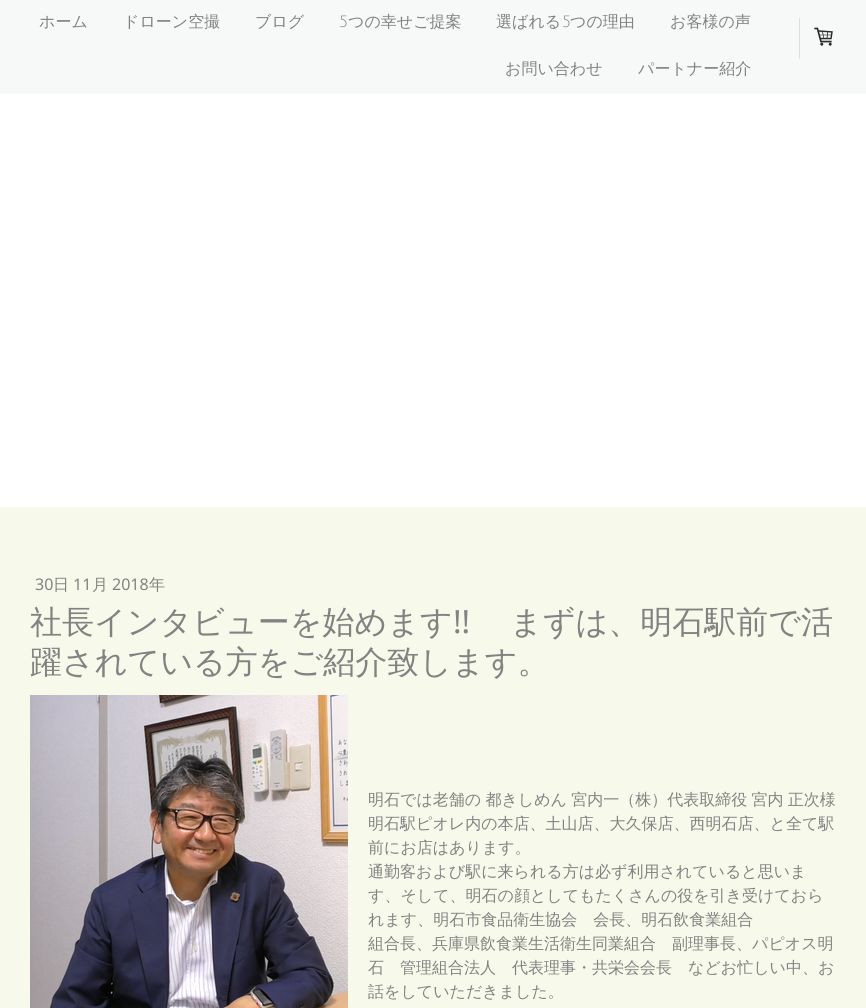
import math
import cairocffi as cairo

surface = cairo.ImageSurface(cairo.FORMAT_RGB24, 866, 1008)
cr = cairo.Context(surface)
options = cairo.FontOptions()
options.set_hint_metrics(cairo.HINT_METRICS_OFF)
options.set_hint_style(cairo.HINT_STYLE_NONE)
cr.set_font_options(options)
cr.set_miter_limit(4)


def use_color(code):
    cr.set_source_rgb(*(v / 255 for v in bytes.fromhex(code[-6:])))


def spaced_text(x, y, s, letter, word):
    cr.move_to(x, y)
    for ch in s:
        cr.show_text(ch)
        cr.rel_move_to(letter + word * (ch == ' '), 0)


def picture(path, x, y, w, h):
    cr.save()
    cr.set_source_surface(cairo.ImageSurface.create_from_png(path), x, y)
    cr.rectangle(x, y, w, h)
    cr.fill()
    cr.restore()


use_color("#ffffff")
cr.paint()
use_color("#f7f8f8")
cr.rectangle(0, 0, 866, 94)
cr.fill()
cr.select_font_face("WenQuanYi Zen Hei Medium")
cr.set_font_size(16)
use_color("#828282")
cr.move_to(39, 27)
cr.show_text("ホーム")
cr.move_to(123, 27)
cr.show_text("ドローン空撮")
cr.move_to(255, 27)
cr.show_text("ブログ")
cr.select_font_face("Julius Sans One")
cr.move_to(339, 27)
cr.show_text("5")
cr.select_font_face("WenQuanYi Zen Hei Medium")
cr.move_to(348, 27)
cr.show_text("つの幸せご提案")
cr.move_to(496, 27)
cr.show_text("選ばれる")
cr.select_font_face("Julius Sans One")
cr.move_to(562, 27)
cr.show_text("5")
cr.select_font_face("WenQuanYi Zen Hei Medium")
cr.move_to(570, 27)
cr.show_text("つの理由")
cr.move_to(670, 27)
cr.show_text("お客様の声")
cr.move_to(505, 74)
cr.show_text("お問い合わせ")
cr.move_to(638, 74)
cr.show_text("パートナー紹介")
use_color("#dedfdf")
cr.rectangle(799, 18, 1, 41)
cr.fill()
picture("img1.png", 814, 27, 19, 19)
use_color("#f7f9eb")
cr.rectangle(0, 507, 866, 501)
cr.fill()
cr.select_font_face("Noto Sans")
use_color("#828282")
cr.move_to(35, 590)
cr.show_text("30")
cr.select_font_face("WenQuanYi Zen Hei Medium")
cr.move_to(53, 590)
cr.show_text("日")
cr.select_font_face("Noto Sans")
cr.move_to(73, 590)
cr.show_text("11")
cr.select_font_face("WenQuanYi Zen Hei Medium")
cr.move_to(92, 590)
cr.show_text("月")
cr.select_font_face("Noto Sans")
cr.move_to(112, 590)
cr.show_text("2018")
cr.select_font_face("WenQuanYi Zen Hei Medium")
cr.move_to(149, 590)
cr.show_text("年")
cr.set_font_size(32)
cr.move_to(30, 633)
cr.show_text("社長インタビューを始めます")
cr.select_font_face("Noto Sans")
cr.move_to(453, 633)
cr.show_text("!!")
cr.select_font_face("WenQuanYi Zen Hei Medium")
cr.move_to(510, 633)
cr.show_text("まずは、明石駅前で活")
cr.move_to(30, 673)
cr.show_text("躍されている方をご紹介致します。")
picture("img2.png", 30, 695, 318, 313)
cr.set_font_size(16)
spaced_text(368, 805, "明石では老舗の 都きしめん 宮内一（株）代表取締役 宮内 正次様", 0, -0.5)
cr.move_to(368, 829)
cr.show_text("明石駅ピオレ内の本店、土山店、大久保店、西明石店、と全て駅")
cr.move_to(368, 853)
cr.show_text("前にお店はあります。")
cr.move_to(368, 877)
cr.show_text("通勤客および駅に来られる方は必ず利用されていると思いま")
cr.move_to(368, 901)
cr.show_text("す、そして、明石の顔としてもたくさんの役を引き受けておら")
cr.move_to(368, 925)
cr.show_text("れます、明石市食品衛生協会　会長、明石飲食業組合")
cr.move_to(368, 949)
cr.show_text("組合長、兵庫県飲食業生活衛生同業組合　副理事長、パピオス明")
cr.move_to(368, 973)
cr.show_text("石　管理組合法人　代表理事・共栄会会長　などお忙しい中、お")
cr.move_to(368, 997)
cr.show_text("話をしていただきました。")
surface.write_to_png("result.png")
